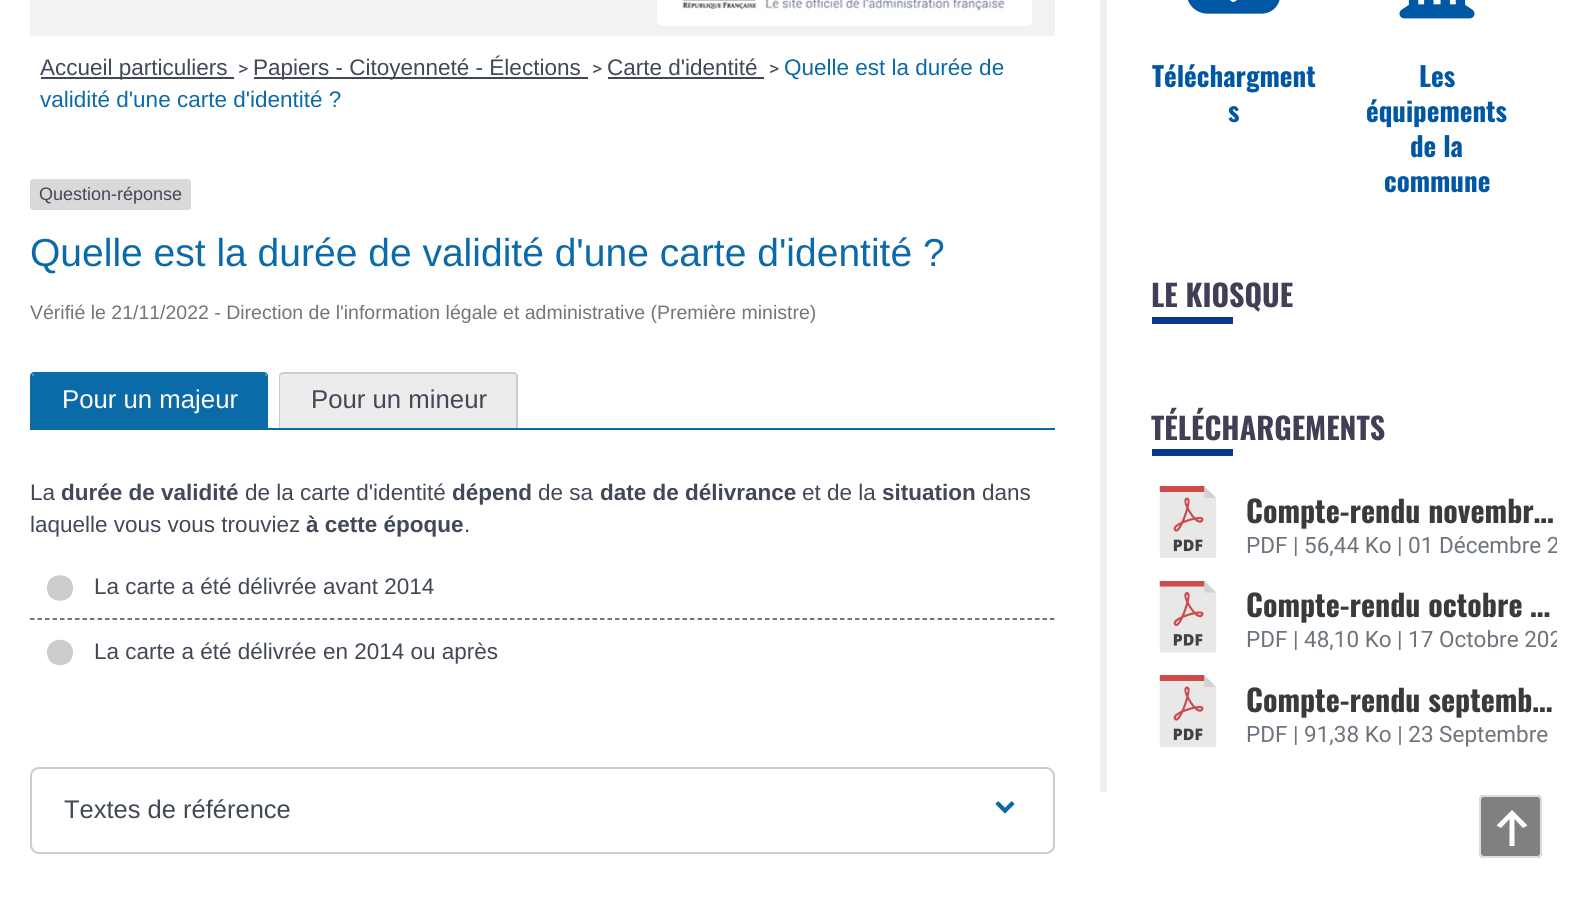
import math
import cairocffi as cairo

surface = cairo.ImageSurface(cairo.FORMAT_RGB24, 1586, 902)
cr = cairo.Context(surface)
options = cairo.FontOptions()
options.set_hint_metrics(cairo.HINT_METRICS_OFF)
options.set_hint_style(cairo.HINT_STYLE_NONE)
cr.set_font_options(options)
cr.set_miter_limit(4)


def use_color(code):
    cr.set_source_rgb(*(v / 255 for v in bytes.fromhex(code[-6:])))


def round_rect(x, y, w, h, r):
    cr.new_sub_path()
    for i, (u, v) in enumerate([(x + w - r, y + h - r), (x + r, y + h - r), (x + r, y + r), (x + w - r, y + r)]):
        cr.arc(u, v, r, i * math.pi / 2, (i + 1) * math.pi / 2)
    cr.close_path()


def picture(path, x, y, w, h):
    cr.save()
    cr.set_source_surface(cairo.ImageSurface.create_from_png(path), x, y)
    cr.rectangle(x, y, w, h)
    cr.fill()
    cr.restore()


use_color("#ffffff")
cr.paint()
use_color("#f2f2f2")
cr.rectangle(30, 0, 1025, 36)
cr.fill()
use_color("#ffffff")
round_rect(657, -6, 375, 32, 6)
cr.fill()
picture("img1.png", 682, 0, 323, 14)
use_color("#414856")
cr.rectangle(41, 77, 193, 2)
cr.fill()
cr.select_font_face("Liberation Sans")
cr.set_font_size(22.5)
cr.move_to(40, 75)
cr.show_text("Accueil particuliers")
cr.select_font_face("Roboto")
cr.set_font_size(19.5)
cr.move_to(238, 75)
cr.show_text(">")
cr.rectangle(254, 77, 334, 2)
cr.fill()
cr.select_font_face("Liberation Sans")
cr.set_font_size(22.5)
cr.move_to(253, 75)
cr.show_text("Papiers - Citoyenneté - Élections")
cr.select_font_face("Roboto")
cr.set_font_size(19.5)
cr.move_to(592, 75)
cr.show_text(">")
cr.select_font_face("Liberation Sans")
cr.set_font_size(22.5)
cr.move_to(607, 75)
cr.show_text("Carte d'identité")
cr.rectangle(608, 77, 156, 2)
cr.fill()
cr.select_font_face("Roboto")
cr.set_font_size(19.5)
cr.move_to(769, 75)
cr.show_text(">")
cr.select_font_face("Liberation Sans")
cr.set_font_size(22.5)
use_color("#0b6ba8")
cr.move_to(784, 75)
cr.show_text("Quelle est la durée de")
cr.move_to(40, 107)
cr.show_text("validité d'une carte d'identité ?")
use_color("#d9d9d9")
round_rect(30, 179, 161, 31, 3)
cr.fill()
cr.set_font_size(18)
use_color("#414856")
cr.move_to(39, 200)
cr.show_text("Question-réponse")
cr.set_font_size(39)
use_color("#0b6ba8")
cr.move_to(30, 266)
cr.show_text("Quelle est la durée de validité d'une carte d'identité ?")
cr.set_font_size(19.5)
use_color("#757575")
cr.move_to(30, 319)
cr.show_text("Vérifié le 21/11/2022 - Direction de l'information légale et administrative (Première ministre)")
use_color("#0b6ba8")
cr.new_path()
cr.move_to(35, 374)
cr.line_to(264, 374)
cr.curve_to(265.5, 374, 267, 375.5, 267, 377)
cr.line_to(267, 428)
cr.line_to(32, 428)
cr.line_to(32, 377)
cr.curve_to(32, 375.5, 33.5, 374, 35, 374)
cr.close_path()
cr.fill()
cr.set_fill_rule(cairo.FILL_RULE_EVEN_ODD)
cr.new_path()
cr.move_to(34, 372)
cr.line_to(264, 372)
cr.curve_to(266, 372, 268, 374, 268, 376)
cr.line_to(268, 428)
cr.line_to(30, 428)
cr.line_to(30, 376)
cr.curve_to(30, 374, 32, 372, 34, 372)
cr.close_path()
cr.move_to(34, 374)
cr.line_to(264, 374)
cr.curve_to(266, 374, 267, 375, 267, 376)
cr.line_to(267, 428)
cr.line_to(32, 428)
cr.line_to(32, 376)
cr.curve_to(32, 375, 33, 374, 34, 374)
cr.close_path()
cr.fill()
cr.set_font_size(25.75)
use_color("#ffffff")
cr.move_to(62, 408)
cr.show_text("Pour un majeur")
use_color("#ececec")
cr.new_path()
cr.move_to(284, 372)
cr.line_to(513, 372)
cr.curve_to(516, 372, 518, 374, 518, 377)
cr.line_to(518, 428)
cr.line_to(279, 428)
cr.line_to(279, 377)
cr.curve_to(279, 374, 281, 372, 284, 372)
cr.close_path()
cr.fill()
use_color("#cccccc")
cr.new_path()
cr.move_to(284, 372)
cr.line_to(513, 372)
cr.curve_to(515, 372, 518, 374, 518, 376)
cr.line_to(518, 428)
cr.line_to(279, 428)
cr.line_to(279, 376)
cr.curve_to(279, 374, 281, 372, 284, 372)
cr.close_path()
cr.move_to(284, 374)
cr.line_to(513, 374)
cr.curve_to(515, 374, 516, 375, 516, 376)
cr.line_to(516, 428)
cr.line_to(280, 428)
cr.line_to(280, 376)
cr.curve_to(280, 375, 282, 374, 284, 374)
cr.close_path()
cr.fill()
use_color("#414856")
cr.move_to(311, 408)
cr.show_text("Pour un mineur")
use_color("#0b6ba8")
cr.rectangle(30, 428, 1025, 2)
cr.fill()
cr.set_font_size(22.5)
use_color("#414856")
cr.move_to(30, 500)
cr.show_text("La")
cr.select_font_face("Liberation Sans", cairo.FONT_SLANT_NORMAL, cairo.FONT_WEIGHT_BOLD)
cr.move_to(61, 500)
cr.show_text("durée de validité")
cr.select_font_face("Liberation Sans")
cr.move_to(245, 500)
cr.show_text("de la carte d'identité")
cr.select_font_face("Liberation Sans", cairo.FONT_SLANT_NORMAL, cairo.FONT_WEIGHT_BOLD)
cr.move_to(452, 500)
cr.show_text("dépend")
cr.select_font_face("Liberation Sans")
cr.move_to(538, 500)
cr.show_text("de sa")
cr.select_font_face("Liberation Sans", cairo.FONT_SLANT_NORMAL, cairo.FONT_WEIGHT_BOLD)
cr.move_to(600, 500)
cr.show_text("date de délivrance")
cr.select_font_face("Liberation Sans")
cr.move_to(802, 500)
cr.show_text("et de la")
cr.select_font_face("Liberation Sans", cairo.FONT_SLANT_NORMAL, cairo.FONT_WEIGHT_BOLD)
cr.move_to(882, 500)
cr.show_text("situation")
cr.select_font_face("Liberation Sans")
cr.move_to(982, 500)
cr.show_text("dans")
cr.move_to(30, 532)
cr.show_text("laquelle vous vous trouviez")
cr.select_font_face("Liberation Sans", cairo.FONT_SLANT_NORMAL, cairo.FONT_WEIGHT_BOLD)
cr.move_to(306, 532)
cr.show_text("à cette époque")
cr.select_font_face("Liberation Sans")
cr.move_to(464, 532)
cr.show_text(".")
use_color("#cccccc")
cr.set_fill_rule(cairo.FILL_RULE_WINDING)
cr.new_path()
cr.move_to(73, 588)
cr.curve_to(73, 605, 47, 605, 47, 588)
cr.curve_to(47, 571, 73, 571, 73, 588)
cr.close_path()
cr.fill()
use_color("#414856")
cr.move_to(94, 594)
cr.show_text("La carte a été délivrée avant 2014")
cr.new_path()
cr.move_to(30, 619)
cr.line_to(1054.5, 619)
cr.set_line_width(1.5)
cr.set_dash([4.5, 3])
cr.stroke()
use_color("#cccccc")
cr.new_path()
cr.move_to(73, 652.5)
cr.curve_to(73, 669.5, 47, 669.5, 47, 652.5)
cr.curve_to(47, 635.5, 73, 635.5, 73, 652.5)
cr.close_path()
cr.fill()
use_color("#414856")
cr.move_to(94, 659)
cr.show_text("La carte a été délivrée en 2014 ou après")
round_rect(31, 768, 1023, 85, 8)
use_color("#cccccc")
cr.set_line_width(2)
cr.set_dash([])
cr.stroke()
cr.set_font_size(25.5)
use_color("#414856")
cr.move_to(64, 818)
cr.show_text("Textes de référence")
picture("img2.png", 995, 801, 20, 13)
use_color("#efefef")
cr.rectangle(1100, 0, 7, 792)
cr.fill()
picture("img3.png", 1188, 0, 92, 14)
cr.select_font_face("Oswald", cairo.FONT_SLANT_NORMAL, cairo.FONT_WEIGHT_BOLD)
cr.set_font_size(27)
use_color("#0057a3")
cr.move_to(1152, 87)
cr.show_text("Téléchargment")
cr.move_to(1228, 122)
cr.show_text("s")
picture("img4.png", 1399, 0, 76, 19)
cr.move_to(1419, 87)
cr.show_text("Les")
cr.move_to(1366, 122)
cr.show_text("équipements")
cr.move_to(1410, 157)
cr.show_text("de la")
cr.move_to(1384, 192)
cr.show_text("commune")
cr.set_font_size(30)
use_color("#423e56")
cr.move_to(1151, 307)
cr.show_text("LE KIOSQUE")
use_color("#08398a")
cr.rectangle(1152, 317, 81, 7)
cr.fill()
use_color("#423e56")
cr.move_to(1151, 440)
cr.show_text("TÉLÉCHARGEMENTS")
use_color("#08398a")
cr.rectangle(1152, 449, 81, 7)
cr.fill()
picture("img5.png", 1159, 486, 58, 72)
use_color("#3a3a3a")
cr.move_to(1246, 523)
cr.show_text("Compte-rendu novembr…")
cr.select_font_face("Roboto")
cr.set_font_size(22.5)
use_color("#6c757d")
cr.move_to(1246, 553)
cr.show_text("PDF | 56,44 Ko")
cr.save()
cr.rectangle(1247, 486, 310, 72)
cr.clip()
cr.move_to(1397, 553)
cr.show_text("| 01 Décembre 2")
cr.restore()
picture("img6.png", 1159, 581, 58, 72)
cr.select_font_face("Oswald", cairo.FONT_SLANT_NORMAL, cairo.FONT_WEIGHT_BOLD)
cr.set_font_size(30)
use_color("#3a3a3a")
cr.move_to(1246, 617)
cr.show_text("Compte-rendu octobre …")
cr.select_font_face("Roboto")
cr.set_font_size(22.5)
use_color("#6c757d")
cr.move_to(1246, 647)
cr.show_text("PDF | 48,10 Ko")
cr.save()
cr.rectangle(1247, 581, 310, 72)
cr.clip()
cr.move_to(1397, 647)
cr.show_text("| 17 Octobre 202")
cr.restore()
picture("img5.png", 1159, 675, 58, 72)
cr.select_font_face("Oswald", cairo.FONT_SLANT_NORMAL, cairo.FONT_WEIGHT_BOLD)
cr.set_font_size(30)
use_color("#3a3a3a")
cr.move_to(1246, 712)
cr.show_text("Compte-rendu septemb…")
cr.select_font_face("Roboto")
cr.set_font_size(22.5)
use_color("#6c757d")
cr.move_to(1246, 742)
cr.show_text("PDF | 91,38 Ko | 23 Septembre")
use_color("#808080")
round_rect(1479, 795, 63, 63, 5)
cr.fill()
round_rect(1480, 796, 61, 61, 4)
cr.set_source_rgba(0.949, 0.949, 0.949, 0.8)
cr.stroke()
use_color("#ffffff")
cr.new_path()
cr.move_to(1514.5, 846)
cr.line_to(1509.5, 846)
cr.line_to(1509.5, 819)
cr.line_to(1501, 828)
cr.line_to(1496.5, 825.5)
cr.line_to(1512, 810)
cr.line_to(1527.5, 825.5)
cr.line_to(1523, 828)
cr.line_to(1514.5, 819)
cr.close_path()
cr.fill()
surface.write_to_png("result.png")
